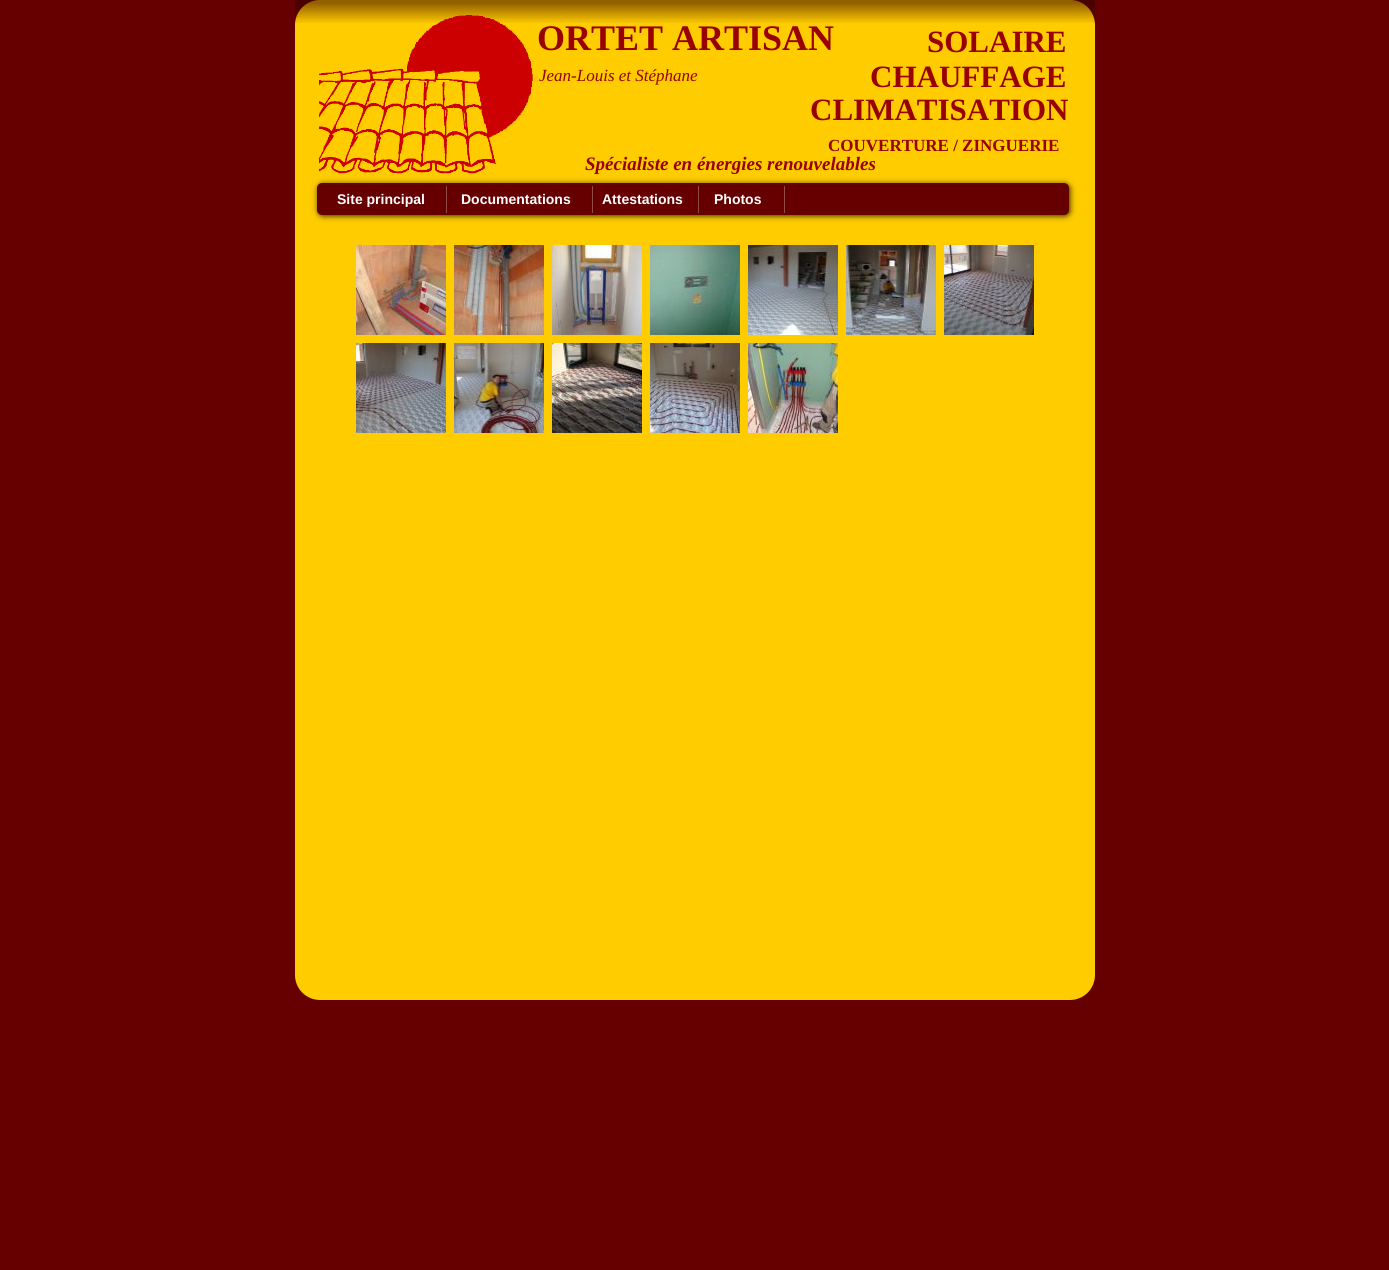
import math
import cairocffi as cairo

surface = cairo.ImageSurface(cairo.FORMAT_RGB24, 1389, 1270)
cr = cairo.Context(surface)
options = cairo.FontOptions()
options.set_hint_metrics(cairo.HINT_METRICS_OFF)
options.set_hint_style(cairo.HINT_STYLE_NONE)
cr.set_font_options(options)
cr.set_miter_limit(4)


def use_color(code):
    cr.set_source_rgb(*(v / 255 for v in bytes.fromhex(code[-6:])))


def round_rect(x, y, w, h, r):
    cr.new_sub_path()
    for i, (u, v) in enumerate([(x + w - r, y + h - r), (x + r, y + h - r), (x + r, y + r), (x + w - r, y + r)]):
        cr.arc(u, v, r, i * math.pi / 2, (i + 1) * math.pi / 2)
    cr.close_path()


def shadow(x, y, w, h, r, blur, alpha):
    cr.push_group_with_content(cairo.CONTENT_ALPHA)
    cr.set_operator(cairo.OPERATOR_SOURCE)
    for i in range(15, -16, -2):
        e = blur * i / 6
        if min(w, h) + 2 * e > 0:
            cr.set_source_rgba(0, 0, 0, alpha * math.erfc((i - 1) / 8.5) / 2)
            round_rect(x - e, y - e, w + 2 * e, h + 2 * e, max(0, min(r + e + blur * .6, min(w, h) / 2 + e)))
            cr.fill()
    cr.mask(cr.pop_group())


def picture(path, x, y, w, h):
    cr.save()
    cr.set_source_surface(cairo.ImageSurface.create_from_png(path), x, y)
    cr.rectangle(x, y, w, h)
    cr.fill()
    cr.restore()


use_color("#660000")
cr.paint()
use_color("#ffcc00")
round_rect(295, 0, 800, 1000, 25)
cr.fill()
gradient = cairo.LinearGradient(347, 3, 347, 24)
gradient.add_color_stop_rgba(0, 0.2, 0, 0, 0.53)
gradient.add_color_stop_rgba(1, 0.2, 0, 0, 0)
cr.set_source(gradient)
cr.rectangle(295, 0, 800, 23)
cr.fill()
picture("img1.png", 319, 15, 214, 159)
cr.select_font_face("Liberation Serif", cairo.FONT_SLANT_NORMAL, cairo.FONT_WEIGHT_BOLD)
cr.set_font_size(36)
use_color("#990000")
cr.move_to(537, 50)
cr.show_text("ORTET ARTISAN")
cr.set_font_size(31)
cr.move_to(927, 52)
cr.show_text("SOLAIRE")
cr.select_font_face("Liberation Serif", cairo.FONT_SLANT_ITALIC)
cr.set_font_size(17)
cr.move_to(539, 81)
cr.show_text("Jean-Louis et Stéphane")
cr.select_font_face("Liberation Serif", cairo.FONT_SLANT_NORMAL, cairo.FONT_WEIGHT_BOLD)
cr.set_font_size(31)
cr.move_to(870, 87)
cr.show_text("CHAUFFAGE")
cr.move_to(810, 120)
cr.show_text("CLIMATISATION")
cr.set_font_size(17)
cr.move_to(828, 151)
cr.show_text("COUVERTURE / ZINGUERIE")
use_color("#000000")
shadow(318, 184, 752, 32, 5, 3, 0.8)
cr.select_font_face("Liberation Serif", cairo.FONT_SLANT_ITALIC, cairo.FONT_WEIGHT_BOLD)
cr.set_font_size(19)
use_color("#990000")
cr.move_to(585, 170)
cr.show_text("Spécialiste en énergies renouvelables")
use_color("#660000")
round_rect(317, 183, 752, 32, 5)
cr.fill()
cr.select_font_face("Liberation Sans", cairo.FONT_SLANT_NORMAL, cairo.FONT_WEIGHT_BOLD)
cr.set_font_size(14)
use_color("#ffffff")
cr.move_to(337, 204)
cr.show_text("Site principal")
use_color("#8c4e46")
cr.rectangle(446, 186, 1, 27)
cr.fill()
use_color("#ffffff")
cr.move_to(461, 204)
cr.show_text("Documentations")
use_color("#8c4e46")
cr.rectangle(592, 186, 1, 27)
cr.fill()
use_color("#ffffff")
cr.move_to(602, 204)
cr.show_text("Attestations")
use_color("#8c4e46")
cr.rectangle(698, 186, 1, 27)
cr.fill()
use_color("#ffffff")
cr.move_to(714, 204)
cr.show_text("Photos")
use_color("#8c4e46")
cr.rectangle(784, 186, 1, 27)
cr.fill()
picture("img2.png", 356, 245, 90, 90)
picture("img3.png", 454, 245, 90, 90)
picture("img4.png", 552, 245, 90, 90)
picture("img5.png", 650, 245, 90, 90)
picture("img6.png", 748, 245, 90, 90)
picture("img7.png", 846, 245, 90, 90)
picture("img8.png", 944, 245, 90, 90)
picture("img9.png", 356, 343, 90, 90)
picture("img10.png", 454, 343, 90, 90)
picture("img11.png", 552, 343, 90, 90)
picture("img12.png", 650, 343, 90, 90)
picture("img13.png", 748, 343, 90, 90)
surface.write_to_png("result.png")
